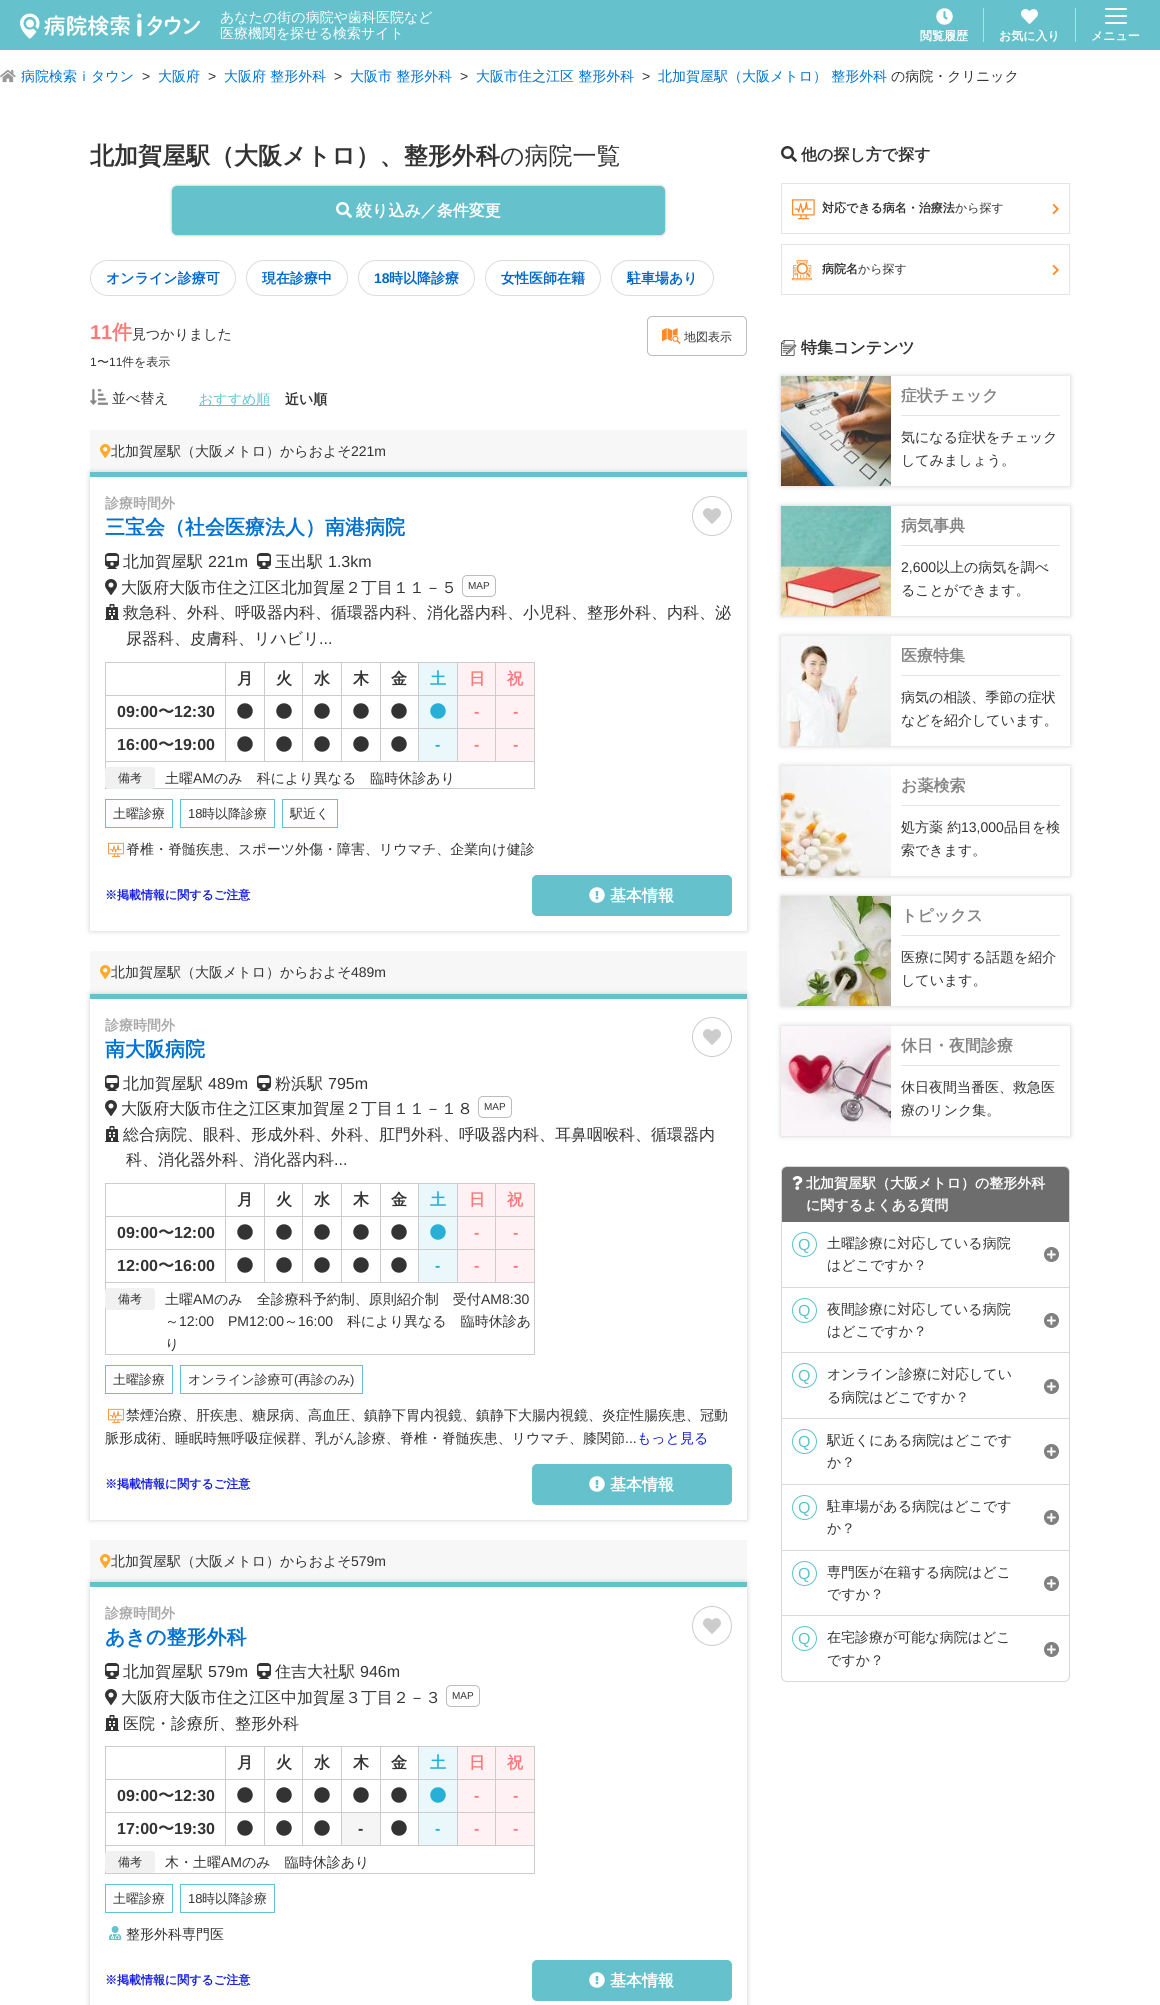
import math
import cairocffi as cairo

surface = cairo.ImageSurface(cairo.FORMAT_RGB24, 1160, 2005)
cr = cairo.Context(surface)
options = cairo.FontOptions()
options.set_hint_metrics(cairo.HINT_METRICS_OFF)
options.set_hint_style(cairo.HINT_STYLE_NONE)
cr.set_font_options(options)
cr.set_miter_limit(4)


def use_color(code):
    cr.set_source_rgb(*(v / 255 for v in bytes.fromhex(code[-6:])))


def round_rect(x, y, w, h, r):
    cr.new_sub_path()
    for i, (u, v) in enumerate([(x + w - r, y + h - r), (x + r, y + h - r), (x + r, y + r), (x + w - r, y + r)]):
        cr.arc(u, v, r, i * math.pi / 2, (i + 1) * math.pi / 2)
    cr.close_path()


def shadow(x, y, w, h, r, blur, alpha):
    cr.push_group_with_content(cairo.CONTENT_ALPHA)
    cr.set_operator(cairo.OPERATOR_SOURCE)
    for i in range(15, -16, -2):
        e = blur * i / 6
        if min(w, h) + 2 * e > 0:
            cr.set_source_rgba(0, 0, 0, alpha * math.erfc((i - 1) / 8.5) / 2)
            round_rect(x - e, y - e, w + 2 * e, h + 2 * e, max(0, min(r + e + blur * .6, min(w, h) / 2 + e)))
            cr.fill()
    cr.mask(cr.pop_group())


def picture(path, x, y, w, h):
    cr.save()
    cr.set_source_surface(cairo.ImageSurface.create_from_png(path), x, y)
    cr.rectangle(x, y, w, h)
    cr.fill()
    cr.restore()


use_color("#ffffff")
cr.paint()
use_color("#65c1cb")
cr.rectangle(0, 0, 1160, 50)
cr.fill()
picture("img1.png", 20, 13, 180, 26)
cr.select_font_face("WenQuanYi Zen Hei Medium")
cr.set_font_size(14)
use_color("#ffffff")
cr.move_to(220, 22)
cr.show_text("あなたの街の病院や歯科医院など")
cr.move_to(220, 38)
cr.show_text("医療機関を探せる検索サイト")
picture("img2.png", 936, 8, 17, 17)
cr.select_font_face("WenQuanYi Zen Hei", cairo.FONT_SLANT_NORMAL, cairo.FONT_WEIGHT_BOLD)
cr.set_font_size(12)
cr.move_to(920, 40)
cr.show_text("閲覧履歴")
use_color("#b2e0e5")
cr.rectangle(983, 8, 1, 34)
cr.fill()
picture("img3.png", 1021, 9, 17, 15)
use_color("#ffffff")
cr.move_to(999, 40)
cr.show_text("お気に入り")
use_color("#b2e0e5")
cr.rectangle(1075, 8, 1, 34)
cr.fill()
picture("img4.png", 1105, 8, 22, 16)
use_color("#ffffff")
cr.move_to(1091, 40)
cr.show_text("メニュー")
picture("img5.png", 0, 69, 16, 14)
cr.select_font_face("WenQuanYi Zen Hei Medium")
cr.set_font_size(14)
use_color("#0072d3")
cr.move_to(21, 81)
cr.show_text("病院検索ｉタウン")
cr.select_font_face("Liberation Sans")
use_color("#333333")
cr.move_to(142, 81)
cr.show_text(">")
cr.select_font_face("WenQuanYi Zen Hei Medium")
use_color("#0072d3")
cr.move_to(158, 81)
cr.show_text("大阪府")
cr.select_font_face("Liberation Sans")
use_color("#333333")
cr.move_to(208, 81)
cr.show_text(">")
cr.select_font_face("WenQuanYi Zen Hei Medium")
use_color("#0072d3")
cr.move_to(224, 81)
cr.show_text("大阪府 整形外科")
cr.select_font_face("Liberation Sans")
use_color("#333333")
cr.move_to(334, 81)
cr.show_text(">")
cr.select_font_face("WenQuanYi Zen Hei Medium")
use_color("#0072d3")
cr.move_to(350, 81)
cr.show_text("大阪市 整形外科")
cr.select_font_face("Liberation Sans")
use_color("#333333")
cr.move_to(460, 81)
cr.show_text(">")
cr.select_font_face("WenQuanYi Zen Hei Medium")
use_color("#0072d3")
cr.move_to(476, 81)
cr.show_text("大阪市住之江区 整形外科")
cr.select_font_face("Liberation Sans")
use_color("#333333")
cr.move_to(642, 81)
cr.show_text(">")
cr.select_font_face("WenQuanYi Zen Hei Medium")
use_color("#0072d3")
cr.move_to(658, 81)
cr.show_text("北加賀屋駅（大阪メトロ） 整形外科")
use_color("#333333")
cr.move_to(891, 81)
cr.show_text("の病院・クリニック")
cr.select_font_face("WenQuanYi Zen Hei", cairo.FONT_SLANT_NORMAL, cairo.FONT_WEIGHT_BOLD)
cr.set_font_size(24)
cr.move_to(90, 164)
cr.show_text("北加賀屋駅（大阪メトロ）、整形外科")
cr.select_font_face("WenQuanYi Zen Hei Medium")
cr.move_to(500, 164)
cr.show_text("の病院一覧")
use_color("#000000")
shadow(172, 186, 493, 49, 5, 1.5, 0.3)
use_color("#65c1cb")
round_rect(172.5, 186.5, 492, 48, 4.5)
cr.fill_preserve()
cr.set_line_width(1)
cr.stroke()
picture("img6.png", 336, 202, 16, 16)
cr.select_font_face("WenQuanYi Zen Hei", cairo.FONT_SLANT_NORMAL, cairo.FONT_WEIGHT_BOLD)
cr.set_font_size(16)
use_color("#ffffff")
cr.move_to(356, 216)
cr.show_text("絞り込み／条件変更")
round_rect(90.5, 260.5, 145, 35, 17.5)
use_color("#dddddd")
cr.stroke()
cr.set_font_size(14)
use_color("#0066cc")
cr.move_to(106, 283)
cr.show_text("オンライン診療可")
round_rect(246.5, 260.5, 101, 35, 17.5)
use_color("#dddddd")
cr.stroke()
use_color("#0066cc")
cr.move_to(262, 283)
cr.show_text("現在診療中")
round_rect(358.5, 260.5, 116, 35, 17.5)
use_color("#dddddd")
cr.stroke()
cr.select_font_face("Liberation Sans", cairo.FONT_SLANT_NORMAL, cairo.FONT_WEIGHT_BOLD)
use_color("#0066cc")
cr.move_to(374, 283)
cr.show_text("18")
cr.select_font_face("WenQuanYi Zen Hei", cairo.FONT_SLANT_NORMAL, cairo.FONT_WEIGHT_BOLD)
cr.move_to(389, 283)
cr.show_text("時以降診療")
round_rect(485.5, 260.5, 115, 35, 17.5)
use_color("#dddddd")
cr.stroke()
use_color("#0066cc")
cr.move_to(501, 283)
cr.show_text("女性医師在籍")
round_rect(611.5, 260.5, 102, 35, 17.5)
use_color("#dddddd")
cr.stroke()
use_color("#0066cc")
cr.move_to(627, 283)
cr.show_text("駐車場あり")
cr.select_font_face("Liberation Sans", cairo.FONT_SLANT_NORMAL, cairo.FONT_WEIGHT_BOLD)
cr.set_font_size(20)
use_color("#ff7979")
cr.move_to(90, 339)
cr.show_text("11")
cr.select_font_face("WenQuanYi Zen Hei", cairo.FONT_SLANT_NORMAL, cairo.FONT_WEIGHT_BOLD)
cr.move_to(112, 339)
cr.show_text("件")
cr.select_font_face("WenQuanYi Zen Hei Medium")
cr.set_font_size(14)
use_color("#333333")
cr.move_to(132, 339)
cr.show_text("見つかりました")
cr.select_font_face("Liberation Sans")
cr.set_font_size(12)
cr.move_to(90, 366)
cr.show_text("1")
cr.select_font_face("WenQuanYi Zen Hei Medium")
cr.move_to(97, 366)
cr.show_text("〜")
cr.select_font_face("Liberation Sans")
cr.move_to(109, 366)
cr.show_text("11")
cr.select_font_face("WenQuanYi Zen Hei Medium")
cr.move_to(122, 366)
cr.show_text("件を表示")
round_rect(647.5, 316.5, 99, 39, 4.5)
use_color("#bcbcbc")
cr.stroke()
picture("img7.png", 662, 328, 19, 16)
use_color("#333333")
cr.move_to(684, 341)
cr.show_text("地図表示")
picture("img8.png", 90, 389, 18, 16)
cr.set_font_size(14)
cr.move_to(112, 403)
cr.show_text("並べ替え")
use_color("#65c1cb")
cr.rectangle(199, 405, 71, 1)
cr.fill()
cr.move_to(199, 404)
cr.show_text("おすすめ順")
cr.select_font_face("WenQuanYi Zen Hei", cairo.FONT_SLANT_NORMAL, cairo.FONT_WEIGHT_BOLD)
use_color("#333333")
cr.move_to(285, 404)
cr.show_text("近い順")
use_color("#f7f7f7")
cr.rectangle(90, 430, 657, 42)
cr.fill()
cr.select_font_face("WenQuanYi Zen Hei Medium")
use_color("#333333")
cr.move_to(111, 456)
cr.show_text("北加賀屋駅（大阪メトロ）からおよそ")
picture("img9.png", 100, 444, 11, 14)
cr.select_font_face("Liberation Sans")
cr.move_to(351, 456)
cr.show_text("221m")
cr.save()
cr.set_fill_rule(cairo.FILL_RULE_EVEN_ODD)
cr.new_path()
cr.move_to(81, 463)
cr.line_to(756, 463)
cr.line_to(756, 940)
cr.line_to(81, 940)
cr.close_path()
cr.move_to(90, 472)
cr.line_to(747, 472)
cr.line_to(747, 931)
cr.line_to(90, 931)
cr.close_path()
cr.clip()
use_color("#cccccc")
shadow(90, 472, 657, 459, 0, 2.5, 1)
cr.restore()
use_color("#65c1cb")
cr.rectangle(90, 472, 657, 5)
cr.fill()
cr.select_font_face("WenQuanYi Zen Hei", cairo.FONT_SLANT_NORMAL, cairo.FONT_WEIGHT_BOLD)
use_color("#a8a8a8")
cr.move_to(105, 508)
cr.show_text("診療時間外")
cr.set_font_size(20)
use_color("#0072d3")
cr.move_to(105, 534)
cr.show_text("三宝会（社会医療法人）南港病院")
cr.new_path()
cr.arc(712, 516, 19.5, 0, 2 * math.pi)
use_color("#cccccc")
cr.stroke()
picture("img10.png", 703, 508, 18, 16)
picture("img11.png", 105, 553, 14, 16)
cr.select_font_face("WenQuanYi Zen Hei Medium")
cr.set_font_size(16)
use_color("#333333")
cr.move_to(123, 567)
cr.show_text("北加賀屋駅")
cr.select_font_face("Liberation Sans")
cr.move_to(208, 567)
cr.show_text("221m")
picture("img11.png", 257, 553, 14, 16)
cr.select_font_face("WenQuanYi Zen Hei Medium")
cr.move_to(275, 567)
cr.show_text("玉出駅")
cr.select_font_face("Liberation Sans")
cr.move_to(328, 567)
cr.show_text("1.3km")
picture("img12.png", 105, 579, 12, 16)
cr.select_font_face("WenQuanYi Zen Hei Medium")
cr.move_to(121, 593)
cr.show_text("大阪府大阪市住之江区北加賀屋２丁目１１－５")
round_rect(462.5, 575.5, 33, 21, 4.5)
use_color("#bcbcbc")
cr.stroke()
cr.select_font_face("Liberation Sans")
cr.set_font_size(10)
use_color("#333333")
cr.move_to(468, 589)
cr.show_text("MAP")
picture("img13.png", 105, 604, 14, 16)
cr.select_font_face("WenQuanYi Zen Hei Medium")
cr.set_font_size(16)
cr.move_to(123, 618)
cr.show_text("救急科、外科、呼吸器内科、循環器内科、消化器内科、小児科、整形外科、内科、泌")
cr.move_to(126, 644)
cr.show_text("尿器科、皮膚科、リハビリ")
cr.select_font_face("Liberation Sans")
cr.move_to(319, 644)
cr.show_text("...")
use_color("#cccccc")
cr.rectangle(105, 662, 430, 1)
cr.fill()
cr.rectangle(534, 662, 1, 127)
cr.fill()
cr.rectangle(105, 788, 430, 1)
cr.fill()
cr.rectangle(105, 662, 1, 127)
cr.fill()
cr.rectangle(495, 695, 40, 1)
cr.fill()
cr.rectangle(495, 728, 40, 1)
cr.fill()
cr.rectangle(495, 761, 40, 1)
cr.fill()
cr.rectangle(495, 728, 1, 34)
cr.fill()
cr.rectangle(457, 728, 39, 1)
cr.fill()
cr.rectangle(495, 695, 1, 34)
cr.fill()
cr.rectangle(457, 695, 39, 1)
cr.fill()
cr.rectangle(457, 761, 39, 1)
cr.fill()
cr.rectangle(457, 728, 1, 34)
cr.fill()
cr.rectangle(418, 728, 40, 1)
cr.fill()
cr.rectangle(457, 695, 1, 34)
cr.fill()
cr.rectangle(418, 695, 40, 1)
cr.fill()
cr.rectangle(418, 761, 40, 1)
cr.fill()
cr.rectangle(418, 728, 1, 34)
cr.fill()
cr.rectangle(380, 728, 39, 1)
cr.fill()
cr.rectangle(418, 695, 1, 34)
cr.fill()
cr.rectangle(380, 695, 39, 1)
cr.fill()
cr.rectangle(380, 761, 39, 1)
cr.fill()
cr.rectangle(380, 728, 1, 34)
cr.fill()
cr.rectangle(341, 728, 40, 1)
cr.fill()
cr.rectangle(380, 695, 1, 34)
cr.fill()
cr.rectangle(341, 695, 40, 1)
cr.fill()
cr.rectangle(341, 761, 40, 1)
cr.fill()
cr.rectangle(341, 728, 1, 34)
cr.fill()
cr.rectangle(302, 728, 40, 1)
cr.fill()
cr.rectangle(341, 695, 1, 34)
cr.fill()
cr.rectangle(302, 695, 40, 1)
cr.fill()
cr.rectangle(302, 761, 40, 1)
cr.fill()
cr.rectangle(302, 728, 1, 34)
cr.fill()
cr.rectangle(264, 728, 39, 1)
cr.fill()
cr.rectangle(302, 695, 1, 34)
cr.fill()
cr.rectangle(264, 695, 39, 1)
cr.fill()
cr.rectangle(264, 761, 39, 1)
cr.fill()
cr.rectangle(264, 728, 1, 34)
cr.fill()
cr.rectangle(225, 728, 40, 1)
cr.fill()
cr.rectangle(264, 695, 1, 34)
cr.fill()
cr.rectangle(225, 695, 40, 1)
cr.fill()
cr.rectangle(225, 761, 40, 1)
cr.fill()
cr.rectangle(225, 728, 1, 34)
cr.fill()
cr.rectangle(105, 728, 121, 1)
cr.fill()
cr.rectangle(225, 695, 1, 34)
cr.fill()
cr.rectangle(105, 695, 121, 1)
cr.fill()
cr.rectangle(225, 662, 1, 34)
cr.fill()
cr.select_font_face("WenQuanYi Zen Hei", cairo.FONT_SLANT_NORMAL, cairo.FONT_WEIGHT_BOLD)
use_color("#333333")
cr.move_to(237, 684)
cr.show_text("月")
use_color("#cccccc")
cr.rectangle(264, 662, 1, 34)
cr.fill()
use_color("#333333")
cr.move_to(276, 684)
cr.show_text("火")
use_color("#cccccc")
cr.rectangle(302, 662, 1, 34)
cr.fill()
use_color("#333333")
cr.move_to(314, 684)
cr.show_text("水")
use_color("#cccccc")
cr.rectangle(341, 662, 1, 34)
cr.fill()
use_color("#333333")
cr.move_to(353, 684)
cr.show_text("木")
use_color("#cccccc")
cr.rectangle(380, 662, 1, 34)
cr.fill()
use_color("#333333")
cr.move_to(391, 684)
cr.show_text("金")
use_color("#eaf8fc")
cr.rectangle(419, 663, 38, 32)
cr.fill()
use_color("#cccccc")
cr.rectangle(418, 662, 1, 34)
cr.fill()
use_color("#28afd6")
cr.move_to(430, 684)
cr.show_text("土")
use_color("#fff1f4")
cr.rectangle(458, 663, 37, 32)
cr.fill()
use_color("#cccccc")
cr.rectangle(457, 662, 1, 34)
cr.fill()
use_color("#ff7979")
cr.move_to(469, 684)
cr.show_text("日")
use_color("#fff1f4")
cr.rectangle(496, 663, 38, 32)
cr.fill()
use_color("#cccccc")
cr.rectangle(495, 662, 1, 34)
cr.fill()
use_color("#ff7979")
cr.move_to(507, 684)
cr.show_text("祝")
cr.select_font_face("Liberation Sans", cairo.FONT_SLANT_NORMAL, cairo.FONT_WEIGHT_BOLD)
use_color("#333333")
cr.move_to(117, 717)
cr.show_text("09:00")
cr.select_font_face("WenQuanYi Zen Hei", cairo.FONT_SLANT_NORMAL, cairo.FONT_WEIGHT_BOLD)
cr.move_to(158, 717)
cr.show_text("〜")
cr.select_font_face("Liberation Sans", cairo.FONT_SLANT_NORMAL, cairo.FONT_WEIGHT_BOLD)
cr.move_to(174, 717)
cr.show_text("12:30")
picture("img14.png", 237, 703, 16, 16)
picture("img14.png", 276, 703, 16, 16)
picture("img14.png", 314, 703, 16, 16)
picture("img14.png", 353, 703, 16, 16)
picture("img14.png", 391, 703, 16, 16)
use_color("#eaf8fc")
cr.rectangle(419, 696, 38, 32)
cr.fill()
picture("img15.png", 430, 703, 16, 16)
use_color("#fff1f4")
cr.rectangle(458, 696, 37, 32)
cr.fill()
use_color("#ff7979")
cr.move_to(474, 717)
cr.show_text("-")
use_color("#fff1f4")
cr.rectangle(496, 696, 38, 32)
cr.fill()
use_color("#ff7979")
cr.move_to(513, 717)
cr.show_text("-")
use_color("#cccccc")
cr.rectangle(105, 761, 121, 1)
cr.fill()
use_color("#333333")
cr.move_to(117, 750)
cr.show_text("16:00")
cr.select_font_face("WenQuanYi Zen Hei", cairo.FONT_SLANT_NORMAL, cairo.FONT_WEIGHT_BOLD)
cr.move_to(158, 750)
cr.show_text("〜")
cr.select_font_face("Liberation Sans", cairo.FONT_SLANT_NORMAL, cairo.FONT_WEIGHT_BOLD)
cr.move_to(174, 750)
cr.show_text("19:00")
picture("img14.png", 237, 736, 16, 16)
picture("img14.png", 276, 736, 16, 16)
picture("img14.png", 314, 736, 16, 16)
picture("img14.png", 353, 736, 16, 16)
picture("img14.png", 391, 736, 16, 16)
use_color("#eaf8fc")
cr.rectangle(419, 729, 38, 32)
cr.fill()
use_color("#28afd6")
cr.move_to(435, 750)
cr.show_text("-")
use_color("#fff1f4")
cr.rectangle(458, 729, 37, 32)
cr.fill()
use_color("#ff7979")
cr.move_to(474, 750)
cr.show_text("-")
use_color("#fff1f4")
cr.rectangle(496, 729, 38, 32)
cr.fill()
use_color("#ff7979")
cr.move_to(513, 750)
cr.show_text("-")
use_color("#f1f1f1")
round_rect(105, 767, 50, 22, 3)
cr.fill()
cr.select_font_face("WenQuanYi Zen Hei Medium")
cr.set_font_size(12)
use_color("#333333")
cr.move_to(118, 782)
cr.show_text("備考")
cr.set_font_size(14)
cr.move_to(165, 783)
cr.show_text("土曜")
cr.select_font_face("Liberation Sans")
cr.move_to(193, 783)
cr.show_text("AM")
cr.select_font_face("WenQuanYi Zen Hei Medium")
cr.move_to(214, 783)
cr.show_text("のみ　科により異なる　臨時休診あり")
cr.rectangle(105.5, 799.5, 67, 28)
use_color("#65c1cb")
cr.stroke()
cr.set_font_size(13)
use_color("#333333")
cr.move_to(113, 818)
cr.show_text("土曜診療")
cr.rectangle(180.5, 799.5, 94, 28)
use_color("#65c1cb")
cr.stroke()
cr.select_font_face("Liberation Sans")
use_color("#333333")
cr.move_to(188, 818)
cr.show_text("18")
cr.select_font_face("WenQuanYi Zen Hei Medium")
cr.move_to(202, 818)
cr.show_text("時以降診療")
cr.rectangle(282.5, 799.5, 55, 28)
use_color("#65c1cb")
cr.stroke()
use_color("#333333")
cr.move_to(290, 818)
cr.show_text("駅近く")
picture("img16.png", 108, 842, 16, 15)
cr.set_font_size(14)
cr.move_to(126, 854)
cr.show_text("脊椎・脊髄疾患、スポーツ外傷・障害、リウマチ、企業向け健診")
cr.select_font_face("WenQuanYi Zen Hei", cairo.FONT_SLANT_NORMAL, cairo.FONT_WEIGHT_BOLD)
cr.set_font_size(12)
use_color("#131edd")
cr.move_to(105, 899)
cr.show_text("※掲載情報に関するご注意")
use_color("#65c1cb")
round_rect(532.5, 875.5, 199, 40, 4.5)
cr.fill_preserve()
cr.stroke()
picture("img17.png", 589, 887, 16, 16)
cr.set_font_size(16)
use_color("#ffffff")
cr.move_to(610, 901)
cr.show_text("基本情報")
use_color("#f7f7f7")
cr.rectangle(90, 951, 657, 43)
cr.fill()
cr.select_font_face("WenQuanYi Zen Hei Medium")
cr.set_font_size(14)
use_color("#333333")
cr.move_to(111, 977)
cr.show_text("北加賀屋駅（大阪メトロ）からおよそ")
picture("img9.png", 100, 965, 11, 14)
cr.select_font_face("Liberation Sans")
cr.move_to(351, 977)
cr.show_text("489m")
cr.save()
cr.set_fill_rule(cairo.FILL_RULE_EVEN_ODD)
cr.new_path()
cr.move_to(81, 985)
cr.line_to(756, 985)
cr.line_to(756, 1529)
cr.line_to(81, 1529)
cr.close_path()
cr.move_to(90, 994)
cr.line_to(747, 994)
cr.line_to(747, 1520)
cr.line_to(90, 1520)
cr.close_path()
cr.clip()
use_color("#cccccc")
shadow(90, 994, 657, 526, 0, 2.5, 1)
cr.restore()
use_color("#65c1cb")
cr.rectangle(90, 994, 657, 5)
cr.fill()
cr.select_font_face("WenQuanYi Zen Hei", cairo.FONT_SLANT_NORMAL, cairo.FONT_WEIGHT_BOLD)
use_color("#a8a8a8")
cr.move_to(105, 1030)
cr.show_text("診療時間外")
cr.set_font_size(20)
use_color("#0072d3")
cr.move_to(105, 1056)
cr.show_text("南大阪病院")
cr.new_path()
cr.arc(712, 1037, 19.5, 0, 2 * math.pi)
use_color("#cccccc")
cr.stroke()
picture("img10.png", 703, 1029, 18, 16)
picture("img11.png", 105, 1075, 14, 16)
cr.select_font_face("WenQuanYi Zen Hei Medium")
cr.set_font_size(16)
use_color("#333333")
cr.move_to(123, 1089)
cr.show_text("北加賀屋駅")
cr.select_font_face("Liberation Sans")
cr.move_to(208, 1089)
cr.show_text("489m")
picture("img11.png", 257, 1075, 14, 16)
cr.select_font_face("WenQuanYi Zen Hei Medium")
cr.move_to(275, 1089)
cr.show_text("粉浜駅")
cr.select_font_face("Liberation Sans")
cr.move_to(328, 1089)
cr.show_text("795m")
picture("img12.png", 105, 1100, 12, 16)
cr.select_font_face("WenQuanYi Zen Hei Medium")
cr.move_to(121, 1114)
cr.show_text("大阪府大阪市住之江区東加賀屋２丁目１１－１８")
round_rect(478.5, 1096.5, 33, 21, 4.5)
use_color("#bcbcbc")
cr.stroke()
cr.select_font_face("Liberation Sans")
cr.set_font_size(10)
use_color("#333333")
cr.move_to(484, 1110)
cr.show_text("MAP")
picture("img13.png", 105, 1126, 14, 16)
cr.select_font_face("WenQuanYi Zen Hei Medium")
cr.set_font_size(16)
cr.move_to(123, 1140)
cr.show_text("総合病院、眼科、形成外科、外科、肛門外科、呼吸器内科、耳鼻咽喉科、循環器内")
cr.move_to(126, 1165)
cr.show_text("科、消化器外科、消化器内科")
cr.select_font_face("Liberation Sans")
cr.move_to(334, 1165)
cr.show_text("...")
use_color("#cccccc")
cr.rectangle(105, 1183, 430, 1)
cr.fill()
cr.rectangle(534, 1183, 1, 172)
cr.fill()
cr.rectangle(105, 1354, 430, 1)
cr.fill()
cr.rectangle(105, 1183, 1, 172)
cr.fill()
cr.rectangle(495, 1216, 40, 1)
cr.fill()
cr.rectangle(495, 1249, 40, 1)
cr.fill()
cr.rectangle(495, 1282, 40, 1)
cr.fill()
cr.rectangle(495, 1249, 1, 34)
cr.fill()
cr.rectangle(457, 1249, 39, 1)
cr.fill()
cr.rectangle(495, 1216, 1, 34)
cr.fill()
cr.rectangle(457, 1216, 39, 1)
cr.fill()
cr.rectangle(457, 1282, 39, 1)
cr.fill()
cr.rectangle(457, 1249, 1, 34)
cr.fill()
cr.rectangle(418, 1249, 40, 1)
cr.fill()
cr.rectangle(457, 1216, 1, 34)
cr.fill()
cr.rectangle(418, 1216, 40, 1)
cr.fill()
cr.rectangle(418, 1282, 40, 1)
cr.fill()
cr.rectangle(418, 1249, 1, 34)
cr.fill()
cr.rectangle(380, 1249, 39, 1)
cr.fill()
cr.rectangle(418, 1216, 1, 34)
cr.fill()
cr.rectangle(380, 1216, 39, 1)
cr.fill()
cr.rectangle(380, 1282, 39, 1)
cr.fill()
cr.rectangle(380, 1249, 1, 34)
cr.fill()
cr.rectangle(341, 1249, 40, 1)
cr.fill()
cr.rectangle(380, 1216, 1, 34)
cr.fill()
cr.rectangle(341, 1216, 40, 1)
cr.fill()
cr.rectangle(341, 1282, 40, 1)
cr.fill()
cr.rectangle(341, 1249, 1, 34)
cr.fill()
cr.rectangle(302, 1249, 40, 1)
cr.fill()
cr.rectangle(341, 1216, 1, 34)
cr.fill()
cr.rectangle(302, 1216, 40, 1)
cr.fill()
cr.rectangle(302, 1282, 40, 1)
cr.fill()
cr.rectangle(302, 1249, 1, 34)
cr.fill()
cr.rectangle(264, 1249, 39, 1)
cr.fill()
cr.rectangle(302, 1216, 1, 34)
cr.fill()
cr.rectangle(264, 1216, 39, 1)
cr.fill()
cr.rectangle(264, 1282, 39, 1)
cr.fill()
cr.rectangle(264, 1249, 1, 34)
cr.fill()
cr.rectangle(225, 1249, 40, 1)
cr.fill()
cr.rectangle(264, 1216, 1, 34)
cr.fill()
cr.rectangle(225, 1216, 40, 1)
cr.fill()
cr.rectangle(225, 1282, 40, 1)
cr.fill()
cr.rectangle(225, 1249, 1, 34)
cr.fill()
cr.rectangle(105, 1249, 121, 1)
cr.fill()
cr.rectangle(225, 1216, 1, 34)
cr.fill()
cr.rectangle(105, 1216, 121, 1)
cr.fill()
cr.rectangle(225, 1183, 1, 34)
cr.fill()
cr.select_font_face("WenQuanYi Zen Hei", cairo.FONT_SLANT_NORMAL, cairo.FONT_WEIGHT_BOLD)
use_color("#333333")
cr.move_to(237, 1205)
cr.show_text("月")
use_color("#cccccc")
cr.rectangle(264, 1183, 1, 34)
cr.fill()
use_color("#333333")
cr.move_to(276, 1205)
cr.show_text("火")
use_color("#cccccc")
cr.rectangle(302, 1183, 1, 34)
cr.fill()
use_color("#333333")
cr.move_to(314, 1205)
cr.show_text("水")
use_color("#cccccc")
cr.rectangle(341, 1183, 1, 34)
cr.fill()
use_color("#333333")
cr.move_to(353, 1205)
cr.show_text("木")
use_color("#cccccc")
cr.rectangle(380, 1183, 1, 34)
cr.fill()
use_color("#333333")
cr.move_to(391, 1205)
cr.show_text("金")
use_color("#eaf8fc")
cr.rectangle(419, 1184, 38, 32)
cr.fill()
use_color("#cccccc")
cr.rectangle(418, 1183, 1, 34)
cr.fill()
use_color("#28afd6")
cr.move_to(430, 1205)
cr.show_text("土")
use_color("#fff1f4")
cr.rectangle(458, 1184, 37, 32)
cr.fill()
use_color("#cccccc")
cr.rectangle(457, 1183, 1, 34)
cr.fill()
use_color("#ff7979")
cr.move_to(469, 1205)
cr.show_text("日")
use_color("#fff1f4")
cr.rectangle(496, 1184, 38, 32)
cr.fill()
use_color("#cccccc")
cr.rectangle(495, 1183, 1, 34)
cr.fill()
use_color("#ff7979")
cr.move_to(507, 1205)
cr.show_text("祝")
cr.select_font_face("Liberation Sans", cairo.FONT_SLANT_NORMAL, cairo.FONT_WEIGHT_BOLD)
use_color("#333333")
cr.move_to(117, 1238)
cr.show_text("09:00")
cr.select_font_face("WenQuanYi Zen Hei", cairo.FONT_SLANT_NORMAL, cairo.FONT_WEIGHT_BOLD)
cr.move_to(158, 1238)
cr.show_text("〜")
cr.select_font_face("Liberation Sans", cairo.FONT_SLANT_NORMAL, cairo.FONT_WEIGHT_BOLD)
cr.move_to(174, 1238)
cr.show_text("12:00")
picture("img14.png", 237, 1224, 16, 16)
picture("img14.png", 276, 1224, 16, 16)
picture("img14.png", 314, 1224, 16, 16)
picture("img14.png", 353, 1224, 16, 16)
picture("img14.png", 391, 1224, 16, 16)
use_color("#eaf8fc")
cr.rectangle(419, 1217, 38, 32)
cr.fill()
picture("img15.png", 430, 1224, 16, 16)
use_color("#fff1f4")
cr.rectangle(458, 1217, 37, 32)
cr.fill()
use_color("#ff7979")
cr.move_to(474, 1238)
cr.show_text("-")
use_color("#fff1f4")
cr.rectangle(496, 1217, 38, 32)
cr.fill()
use_color("#ff7979")
cr.move_to(513, 1238)
cr.show_text("-")
use_color("#cccccc")
cr.rectangle(105, 1282, 121, 1)
cr.fill()
use_color("#333333")
cr.move_to(117, 1271)
cr.show_text("12:00")
cr.select_font_face("WenQuanYi Zen Hei", cairo.FONT_SLANT_NORMAL, cairo.FONT_WEIGHT_BOLD)
cr.move_to(158, 1271)
cr.show_text("〜")
cr.select_font_face("Liberation Sans", cairo.FONT_SLANT_NORMAL, cairo.FONT_WEIGHT_BOLD)
cr.move_to(174, 1271)
cr.show_text("16:00")
picture("img14.png", 237, 1257, 16, 16)
picture("img14.png", 276, 1257, 16, 16)
picture("img14.png", 314, 1257, 16, 16)
picture("img14.png", 353, 1257, 16, 16)
picture("img14.png", 391, 1257, 16, 16)
use_color("#eaf8fc")
cr.rectangle(419, 1250, 38, 32)
cr.fill()
use_color("#28afd6")
cr.move_to(435, 1271)
cr.show_text("-")
use_color("#fff1f4")
cr.rectangle(458, 1250, 37, 32)
cr.fill()
use_color("#ff7979")
cr.move_to(474, 1271)
cr.show_text("-")
use_color("#fff1f4")
cr.rectangle(496, 1250, 38, 32)
cr.fill()
use_color("#ff7979")
cr.move_to(513, 1271)
cr.show_text("-")
use_color("#f1f1f1")
round_rect(105, 1288, 50, 22, 3)
cr.fill()
cr.select_font_face("WenQuanYi Zen Hei Medium")
cr.set_font_size(12)
use_color("#333333")
cr.move_to(118, 1303)
cr.show_text("備考")
cr.set_font_size(14)
cr.move_to(165, 1304)
cr.show_text("土曜")
cr.select_font_face("Liberation Sans")
cr.move_to(193, 1304)
cr.show_text("AM")
cr.select_font_face("WenQuanYi Zen Hei Medium")
cr.move_to(214, 1304)
cr.show_text("のみ　全診療科予約制、原則紹介制　受付")
cr.select_font_face("Liberation Sans")
cr.move_to(481, 1304)
cr.show_text("AM8:30")
cr.select_font_face("WenQuanYi Zen Hei Medium")
cr.move_to(165, 1326)
cr.show_text("～")
cr.select_font_face("Liberation Sans")
cr.move_to(179, 1326)
cr.show_text("12:00")
cr.move_to(228, 1326)
cr.show_text("PM12:00")
cr.select_font_face("WenQuanYi Zen Hei Medium")
cr.move_to(284, 1326)
cr.show_text("～")
cr.select_font_face("Liberation Sans")
cr.move_to(298, 1326)
cr.show_text("16:00")
cr.select_font_face("WenQuanYi Zen Hei Medium")
cr.move_to(347, 1326)
cr.show_text("科により異なる　臨時休診あ")
cr.move_to(165, 1349)
cr.show_text("り")
cr.rectangle(105.5, 1365.5, 67, 28)
use_color("#65c1cb")
cr.stroke()
cr.set_font_size(13)
use_color("#333333")
cr.move_to(113, 1384)
cr.show_text("土曜診療")
cr.rectangle(180.5, 1365.5, 182, 28)
use_color("#65c1cb")
cr.stroke()
use_color("#333333")
cr.move_to(188, 1384)
cr.show_text("オンライン診療可")
cr.select_font_face("Liberation Sans")
cr.move_to(294, 1384)
cr.show_text("(")
cr.select_font_face("WenQuanYi Zen Hei Medium")
cr.move_to(298, 1384)
cr.show_text("再診のみ")
cr.select_font_face("Liberation Sans")
cr.move_to(350, 1384)
cr.show_text(")")
picture("img16.png", 108, 1408, 16, 15)
cr.select_font_face("WenQuanYi Zen Hei Medium")
cr.set_font_size(14)
cr.move_to(126, 1420)
cr.show_text("禁煙治療、肝疾患、糖尿病、高血圧、鎮静下胃内視鏡、鎮静下大腸内視鏡、炎症性腸疾患、冠動")
cr.move_to(105, 1443)
cr.show_text("脈形成術、睡眠時無呼吸症候群、乳がん診療、脊椎・脊髄疾患、リウマチ、膝関節")
cr.select_font_face("Liberation Sans")
cr.move_to(625, 1443)
cr.show_text("...")
cr.select_font_face("WenQuanYi Zen Hei Medium")
use_color("#131edd")
cr.move_to(637, 1443)
cr.show_text("もっと見る")
cr.select_font_face("WenQuanYi Zen Hei", cairo.FONT_SLANT_NORMAL, cairo.FONT_WEIGHT_BOLD)
cr.set_font_size(12)
cr.move_to(105, 1488)
cr.show_text("※掲載情報に関するご注意")
use_color("#65c1cb")
round_rect(532.5, 1464.5, 199, 40, 4.5)
cr.fill_preserve()
cr.stroke()
picture("img17.png", 589, 1476, 16, 16)
cr.set_font_size(16)
use_color("#ffffff")
cr.move_to(610, 1490)
cr.show_text("基本情報")
use_color("#f7f7f7")
cr.rectangle(90, 1540, 657, 42)
cr.fill()
cr.select_font_face("WenQuanYi Zen Hei Medium")
cr.set_font_size(14)
use_color("#333333")
cr.move_to(111, 1566)
cr.show_text("北加賀屋駅（大阪メトロ）からおよそ")
picture("img9.png", 100, 1554, 11, 14)
cr.select_font_face("Liberation Sans")
cr.move_to(351, 1566)
cr.show_text("579m")
cr.save()
cr.set_fill_rule(cairo.FILL_RULE_EVEN_ODD)
cr.new_path()
cr.move_to(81, 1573)
cr.line_to(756, 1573)
cr.line_to(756, 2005)
cr.line_to(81, 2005)
cr.close_path()
cr.move_to(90, 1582)
cr.line_to(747, 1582)
cr.line_to(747, 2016)
cr.line_to(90, 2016)
cr.close_path()
cr.clip()
use_color("#cccccc")
shadow(90, 1582, 657, 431, 0, 2.5, 1)
cr.restore()
use_color("#65c1cb")
cr.rectangle(90, 1582, 657, 5)
cr.fill()
cr.select_font_face("WenQuanYi Zen Hei", cairo.FONT_SLANT_NORMAL, cairo.FONT_WEIGHT_BOLD)
use_color("#a8a8a8")
cr.move_to(105, 1618)
cr.show_text("診療時間外")
cr.set_font_size(20)
use_color("#0072d3")
cr.move_to(105, 1644)
cr.show_text("あきの整形外科")
cr.new_path()
cr.arc(712, 1626, 19.5, 0, 2 * math.pi)
use_color("#cccccc")
cr.stroke()
picture("img10.png", 703, 1618, 18, 16)
picture("img11.png", 105, 1663, 14, 16)
cr.select_font_face("WenQuanYi Zen Hei Medium")
cr.set_font_size(16)
use_color("#333333")
cr.move_to(123, 1677)
cr.show_text("北加賀屋駅")
cr.select_font_face("Liberation Sans")
cr.move_to(208, 1677)
cr.show_text("579m")
picture("img11.png", 257, 1663, 14, 16)
cr.select_font_face("WenQuanYi Zen Hei Medium")
cr.move_to(275, 1677)
cr.show_text("住吉大社駅")
cr.select_font_face("Liberation Sans")
cr.move_to(360, 1677)
cr.show_text("946m")
picture("img12.png", 105, 1689, 12, 16)
cr.select_font_face("WenQuanYi Zen Hei Medium")
cr.move_to(121, 1703)
cr.show_text("大阪府大阪市住之江区中加賀屋３丁目２－３")
round_rect(446.5, 1685.5, 33, 21, 4.5)
use_color("#bcbcbc")
cr.stroke()
cr.select_font_face("Liberation Sans")
cr.set_font_size(10)
use_color("#333333")
cr.move_to(452, 1699)
cr.show_text("MAP")
picture("img13.png", 105, 1715, 14, 16)
cr.select_font_face("WenQuanYi Zen Hei Medium")
cr.set_font_size(16)
cr.move_to(123, 1729)
cr.show_text("医院・診療所、整形外科")
use_color("#cccccc")
cr.rectangle(105, 1746, 430, 1)
cr.fill()
cr.rectangle(534, 1746, 1, 128)
cr.fill()
cr.rectangle(105, 1873, 430, 1)
cr.fill()
cr.rectangle(105, 1746, 1, 128)
cr.fill()
cr.rectangle(495, 1779, 40, 1)
cr.fill()
cr.rectangle(495, 1812, 40, 1)
cr.fill()
cr.rectangle(495, 1845, 40, 1)
cr.fill()
cr.rectangle(495, 1812, 1, 34)
cr.fill()
cr.rectangle(457, 1812, 39, 1)
cr.fill()
cr.rectangle(495, 1779, 1, 34)
cr.fill()
cr.rectangle(457, 1779, 39, 1)
cr.fill()
cr.rectangle(457, 1845, 39, 1)
cr.fill()
cr.rectangle(457, 1812, 1, 34)
cr.fill()
cr.rectangle(418, 1812, 40, 1)
cr.fill()
cr.rectangle(457, 1779, 1, 34)
cr.fill()
cr.rectangle(418, 1779, 40, 1)
cr.fill()
cr.rectangle(418, 1845, 40, 1)
cr.fill()
cr.rectangle(418, 1812, 1, 34)
cr.fill()
cr.rectangle(380, 1812, 39, 1)
cr.fill()
cr.rectangle(418, 1779, 1, 34)
cr.fill()
cr.rectangle(380, 1779, 39, 1)
cr.fill()
cr.rectangle(380, 1845, 39, 1)
cr.fill()
cr.rectangle(380, 1812, 1, 34)
cr.fill()
cr.rectangle(341, 1812, 40, 1)
cr.fill()
cr.rectangle(380, 1779, 1, 34)
cr.fill()
cr.rectangle(341, 1779, 40, 1)
cr.fill()
cr.rectangle(341, 1845, 40, 1)
cr.fill()
cr.rectangle(341, 1812, 1, 34)
cr.fill()
cr.rectangle(302, 1812, 40, 1)
cr.fill()
cr.rectangle(341, 1779, 1, 34)
cr.fill()
cr.rectangle(302, 1779, 40, 1)
cr.fill()
cr.rectangle(302, 1845, 40, 1)
cr.fill()
cr.rectangle(302, 1812, 1, 34)
cr.fill()
cr.rectangle(264, 1812, 39, 1)
cr.fill()
cr.rectangle(302, 1779, 1, 34)
cr.fill()
cr.rectangle(264, 1779, 39, 1)
cr.fill()
cr.rectangle(264, 1845, 39, 1)
cr.fill()
cr.rectangle(264, 1812, 1, 34)
cr.fill()
cr.rectangle(225, 1812, 40, 1)
cr.fill()
cr.rectangle(264, 1779, 1, 34)
cr.fill()
cr.rectangle(225, 1779, 40, 1)
cr.fill()
cr.rectangle(225, 1845, 40, 1)
cr.fill()
cr.rectangle(225, 1812, 1, 34)
cr.fill()
cr.rectangle(105, 1812, 121, 1)
cr.fill()
cr.rectangle(225, 1779, 1, 34)
cr.fill()
cr.rectangle(105, 1779, 121, 1)
cr.fill()
cr.rectangle(225, 1746, 1, 34)
cr.fill()
cr.select_font_face("WenQuanYi Zen Hei", cairo.FONT_SLANT_NORMAL, cairo.FONT_WEIGHT_BOLD)
use_color("#333333")
cr.move_to(237, 1768)
cr.show_text("月")
use_color("#cccccc")
cr.rectangle(264, 1746, 1, 34)
cr.fill()
use_color("#333333")
cr.move_to(276, 1768)
cr.show_text("火")
use_color("#cccccc")
cr.rectangle(302, 1746, 1, 34)
cr.fill()
use_color("#333333")
cr.move_to(314, 1768)
cr.show_text("水")
use_color("#cccccc")
cr.rectangle(341, 1746, 1, 34)
cr.fill()
use_color("#333333")
cr.move_to(353, 1768)
cr.show_text("木")
use_color("#cccccc")
cr.rectangle(380, 1746, 1, 34)
cr.fill()
use_color("#333333")
cr.move_to(391, 1768)
cr.show_text("金")
use_color("#eaf8fc")
cr.rectangle(419, 1747, 38, 32)
cr.fill()
use_color("#cccccc")
cr.rectangle(418, 1746, 1, 34)
cr.fill()
use_color("#28afd6")
cr.move_to(430, 1768)
cr.show_text("土")
use_color("#fff1f4")
cr.rectangle(458, 1747, 37, 32)
cr.fill()
use_color("#cccccc")
cr.rectangle(457, 1746, 1, 34)
cr.fill()
use_color("#ff7979")
cr.move_to(469, 1768)
cr.show_text("日")
use_color("#fff1f4")
cr.rectangle(496, 1747, 38, 32)
cr.fill()
use_color("#cccccc")
cr.rectangle(495, 1746, 1, 34)
cr.fill()
use_color("#ff7979")
cr.move_to(507, 1768)
cr.show_text("祝")
cr.select_font_face("Liberation Sans", cairo.FONT_SLANT_NORMAL, cairo.FONT_WEIGHT_BOLD)
use_color("#333333")
cr.move_to(117, 1801)
cr.show_text("09:00")
cr.select_font_face("WenQuanYi Zen Hei", cairo.FONT_SLANT_NORMAL, cairo.FONT_WEIGHT_BOLD)
cr.move_to(158, 1801)
cr.show_text("〜")
cr.select_font_face("Liberation Sans", cairo.FONT_SLANT_NORMAL, cairo.FONT_WEIGHT_BOLD)
cr.move_to(174, 1801)
cr.show_text("12:30")
picture("img14.png", 237, 1787, 16, 16)
picture("img14.png", 276, 1787, 16, 16)
picture("img14.png", 314, 1787, 16, 16)
picture("img14.png", 353, 1787, 16, 16)
picture("img14.png", 391, 1787, 16, 16)
use_color("#eaf8fc")
cr.rectangle(419, 1780, 38, 32)
cr.fill()
picture("img15.png", 430, 1787, 16, 16)
use_color("#fff1f4")
cr.rectangle(458, 1780, 37, 32)
cr.fill()
use_color("#ff7979")
cr.move_to(474, 1801)
cr.show_text("-")
use_color("#fff1f4")
cr.rectangle(496, 1780, 38, 32)
cr.fill()
use_color("#ff7979")
cr.move_to(513, 1801)
cr.show_text("-")
use_color("#cccccc")
cr.rectangle(105, 1845, 121, 1)
cr.fill()
use_color("#333333")
cr.move_to(117, 1834)
cr.show_text("17:00")
cr.select_font_face("WenQuanYi Zen Hei", cairo.FONT_SLANT_NORMAL, cairo.FONT_WEIGHT_BOLD)
cr.move_to(158, 1834)
cr.show_text("〜")
cr.select_font_face("Liberation Sans", cairo.FONT_SLANT_NORMAL, cairo.FONT_WEIGHT_BOLD)
cr.move_to(174, 1834)
cr.show_text("19:30")
picture("img14.png", 237, 1820, 16, 16)
picture("img14.png", 276, 1820, 16, 16)
picture("img14.png", 314, 1820, 16, 16)
use_color("#f5f5f5")
cr.rectangle(342, 1813, 38, 32)
cr.fill()
use_color("#333333")
cr.move_to(358, 1834)
cr.show_text("-")
picture("img14.png", 391, 1820, 16, 16)
use_color("#eaf8fc")
cr.rectangle(419, 1813, 38, 32)
cr.fill()
use_color("#28afd6")
cr.move_to(435, 1834)
cr.show_text("-")
use_color("#fff1f4")
cr.rectangle(458, 1813, 37, 32)
cr.fill()
use_color("#ff7979")
cr.move_to(474, 1834)
cr.show_text("-")
use_color("#fff1f4")
cr.rectangle(496, 1813, 38, 32)
cr.fill()
use_color("#ff7979")
cr.move_to(513, 1834)
cr.show_text("-")
use_color("#f1f1f1")
round_rect(105, 1851, 50, 22, 3)
cr.fill()
cr.select_font_face("WenQuanYi Zen Hei Medium")
cr.set_font_size(12)
use_color("#333333")
cr.move_to(118, 1866)
cr.show_text("備考")
cr.set_font_size(14)
cr.move_to(165, 1867)
cr.show_text("木・土曜")
cr.select_font_face("Liberation Sans")
cr.move_to(221, 1867)
cr.show_text("AM")
cr.select_font_face("WenQuanYi Zen Hei Medium")
cr.move_to(242, 1867)
cr.show_text("のみ　臨時休診あり")
cr.rectangle(105.5, 1884.5, 67, 28)
use_color("#65c1cb")
cr.stroke()
cr.set_font_size(13)
use_color("#333333")
cr.move_to(113, 1903)
cr.show_text("土曜診療")
cr.rectangle(180.5, 1884.5, 94, 28)
use_color("#65c1cb")
cr.stroke()
cr.select_font_face("Liberation Sans")
use_color("#333333")
cr.move_to(188, 1903)
cr.show_text("18")
cr.select_font_face("WenQuanYi Zen Hei Medium")
cr.move_to(202, 1903)
cr.show_text("時以降診療")
picture("img18.png", 109, 1926, 13, 14)
cr.set_font_size(14)
cr.move_to(126, 1939)
cr.show_text("整形外科専門医")
cr.select_font_face("WenQuanYi Zen Hei", cairo.FONT_SLANT_NORMAL, cairo.FONT_WEIGHT_BOLD)
cr.set_font_size(12)
use_color("#131edd")
cr.move_to(105, 1984)
cr.show_text("※掲載情報に関するご注意")
use_color("#65c1cb")
round_rect(532.5, 1960.5, 199, 40, 4.5)
cr.fill_preserve()
cr.stroke()
picture("img17.png", 589, 1972, 16, 16)
cr.set_font_size(16)
use_color("#ffffff")
cr.move_to(610, 1986)
cr.show_text("基本情報")
picture("img19.png", 781, 146, 16, 16)
use_color("#333333")
cr.move_to(801, 160)
cr.show_text("他の探し方で探す")
cr.rectangle(781.5, 183.5, 288, 50)
use_color("#e4e4e4")
cr.stroke()
picture("img20.png", 792, 199, 23, 21)
cr.set_font_size(12)
use_color("#333333")
cr.move_to(822, 212)
cr.show_text("対応できる病名・治療法")
cr.select_font_face("WenQuanYi Zen Hei Medium")
cr.move_to(955, 212)
cr.show_text("から探す")
picture("img21.png", 1052, 203, 7, 12)
cr.rectangle(781.5, 244.5, 288, 50)
use_color("#e4e4e4")
cr.stroke()
picture("img22.png", 792, 260, 20, 21)
cr.select_font_face("WenQuanYi Zen Hei", cairo.FONT_SLANT_NORMAL, cairo.FONT_WEIGHT_BOLD)
use_color("#333333")
cr.move_to(822, 273)
cr.show_text("病院名")
cr.select_font_face("WenQuanYi Zen Hei Medium")
cr.move_to(858, 273)
cr.show_text("から探す")
picture("img21.png", 1052, 264, 7, 12)
picture("img23.png", 781, 340, 16, 16)
cr.select_font_face("WenQuanYi Zen Hei", cairo.FONT_SLANT_NORMAL, cairo.FONT_WEIGHT_BOLD)
cr.set_font_size(16)
cr.move_to(801, 353)
cr.show_text("特集コンテンツ")
cr.save()
cr.set_fill_rule(cairo.FILL_RULE_EVEN_ODD)
cr.new_path()
cr.move_to(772, 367)
cr.line_to(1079, 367)
cr.line_to(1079, 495)
cr.line_to(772, 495)
cr.close_path()
cr.move_to(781, 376)
cr.line_to(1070, 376)
cr.line_to(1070, 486)
cr.line_to(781, 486)
cr.close_path()
cr.clip()
use_color("#cccccc")
shadow(781, 376, 289, 110, 0, 2.5, 1)
cr.restore()
picture("img24.png", 781, 376, 110, 110)
use_color("#e4e4e4")
cr.rectangle(901, 415, 159, 1)
cr.fill()
use_color("#858585")
cr.move_to(901, 401)
cr.show_text("症状チェック")
cr.select_font_face("WenQuanYi Zen Hei Medium")
cr.set_font_size(14)
use_color("#333333")
cr.move_to(901, 442)
cr.show_text("気になる症状をチェック")
cr.move_to(901, 465)
cr.show_text("してみましょう。")
cr.save()
cr.set_fill_rule(cairo.FILL_RULE_EVEN_ODD)
cr.new_path()
cr.move_to(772, 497)
cr.line_to(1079, 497)
cr.line_to(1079, 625)
cr.line_to(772, 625)
cr.close_path()
cr.move_to(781, 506)
cr.line_to(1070, 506)
cr.line_to(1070, 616)
cr.line_to(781, 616)
cr.close_path()
cr.clip()
use_color("#cccccc")
shadow(781, 506, 289, 110, 0, 2.5, 1)
cr.restore()
picture("img25.png", 781, 506, 110, 110)
use_color("#e4e4e4")
cr.rectangle(901, 545, 159, 1)
cr.fill()
cr.select_font_face("WenQuanYi Zen Hei", cairo.FONT_SLANT_NORMAL, cairo.FONT_WEIGHT_BOLD)
cr.set_font_size(16)
use_color("#858585")
cr.move_to(901, 531)
cr.show_text("病気事典")
cr.select_font_face("Liberation Sans")
cr.set_font_size(14)
use_color("#333333")
cr.move_to(901, 572)
cr.show_text("2,600")
cr.select_font_face("WenQuanYi Zen Hei Medium")
cr.move_to(936, 572)
cr.show_text("以上の病気を調べ")
cr.move_to(901, 595)
cr.show_text("ることができます。")
cr.save()
cr.set_fill_rule(cairo.FILL_RULE_EVEN_ODD)
cr.new_path()
cr.move_to(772, 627)
cr.line_to(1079, 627)
cr.line_to(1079, 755)
cr.line_to(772, 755)
cr.close_path()
cr.move_to(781, 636)
cr.line_to(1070, 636)
cr.line_to(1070, 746)
cr.line_to(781, 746)
cr.close_path()
cr.clip()
use_color("#cccccc")
shadow(781, 636, 289, 110, 0, 2.5, 1)
cr.restore()
picture("img26.png", 781, 636, 110, 110)
use_color("#e4e4e4")
cr.rectangle(901, 675, 159, 1)
cr.fill()
cr.select_font_face("WenQuanYi Zen Hei", cairo.FONT_SLANT_NORMAL, cairo.FONT_WEIGHT_BOLD)
cr.set_font_size(16)
use_color("#858585")
cr.move_to(901, 661)
cr.show_text("医療特集")
cr.select_font_face("WenQuanYi Zen Hei Medium")
cr.set_font_size(14)
use_color("#333333")
cr.move_to(901, 702)
cr.show_text("病気の相談、季節の症状")
cr.move_to(901, 725)
cr.show_text("などを紹介しています。")
cr.save()
cr.set_fill_rule(cairo.FILL_RULE_EVEN_ODD)
cr.new_path()
cr.move_to(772, 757)
cr.line_to(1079, 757)
cr.line_to(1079, 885)
cr.line_to(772, 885)
cr.close_path()
cr.move_to(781, 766)
cr.line_to(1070, 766)
cr.line_to(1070, 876)
cr.line_to(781, 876)
cr.close_path()
cr.clip()
use_color("#cccccc")
shadow(781, 766, 289, 110, 0, 2.5, 1)
cr.restore()
picture("img27.png", 781, 766, 110, 110)
use_color("#e4e4e4")
cr.rectangle(901, 805, 159, 1)
cr.fill()
cr.select_font_face("WenQuanYi Zen Hei", cairo.FONT_SLANT_NORMAL, cairo.FONT_WEIGHT_BOLD)
cr.set_font_size(16)
use_color("#858585")
cr.move_to(901, 791)
cr.show_text("お薬検索")
cr.select_font_face("WenQuanYi Zen Hei Medium")
cr.set_font_size(14)
use_color("#333333")
cr.move_to(901, 832)
cr.show_text("処方薬 約")
cr.select_font_face("Liberation Sans")
cr.move_to(961, 832)
cr.show_text("13,000")
cr.select_font_face("WenQuanYi Zen Hei Medium")
cr.move_to(1004, 832)
cr.show_text("品目を検")
cr.move_to(901, 855)
cr.show_text("索できます。")
cr.save()
cr.set_fill_rule(cairo.FILL_RULE_EVEN_ODD)
cr.new_path()
cr.move_to(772, 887)
cr.line_to(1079, 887)
cr.line_to(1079, 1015)
cr.line_to(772, 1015)
cr.close_path()
cr.move_to(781, 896)
cr.line_to(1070, 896)
cr.line_to(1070, 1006)
cr.line_to(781, 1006)
cr.close_path()
cr.clip()
use_color("#cccccc")
shadow(781, 896, 289, 110, 0, 2.5, 1)
cr.restore()
picture("img28.png", 781, 896, 110, 110)
use_color("#e4e4e4")
cr.rectangle(901, 935, 159, 1)
cr.fill()
cr.select_font_face("WenQuanYi Zen Hei", cairo.FONT_SLANT_NORMAL, cairo.FONT_WEIGHT_BOLD)
cr.set_font_size(16)
use_color("#858585")
cr.move_to(901, 921)
cr.show_text("トピックス")
cr.select_font_face("WenQuanYi Zen Hei Medium")
cr.set_font_size(14)
use_color("#333333")
cr.move_to(901, 962)
cr.show_text("医療に関する話題を紹介")
cr.move_to(901, 985)
cr.show_text("しています。")
cr.save()
cr.set_fill_rule(cairo.FILL_RULE_EVEN_ODD)
cr.new_path()
cr.move_to(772, 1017)
cr.line_to(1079, 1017)
cr.line_to(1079, 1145)
cr.line_to(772, 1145)
cr.close_path()
cr.move_to(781, 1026)
cr.line_to(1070, 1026)
cr.line_to(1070, 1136)
cr.line_to(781, 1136)
cr.close_path()
cr.clip()
use_color("#cccccc")
shadow(781, 1026, 289, 110, 0, 2.5, 1)
cr.restore()
picture("img29.png", 781, 1026, 110, 110)
use_color("#e4e4e4")
cr.rectangle(901, 1065, 159, 1)
cr.fill()
cr.select_font_face("WenQuanYi Zen Hei", cairo.FONT_SLANT_NORMAL, cairo.FONT_WEIGHT_BOLD)
cr.set_font_size(16)
use_color("#858585")
cr.move_to(901, 1051)
cr.show_text("休日・夜間診療")
cr.select_font_face("WenQuanYi Zen Hei Medium")
cr.set_font_size(14)
use_color("#333333")
cr.move_to(901, 1092)
cr.show_text("休日夜間当番医、救急医")
cr.move_to(901, 1115)
cr.show_text("療のリンク集。")
round_rect(781.5, 1166.5, 288, 515, 5.5)
use_color("#d9d9d9")
cr.stroke()
use_color("#6d6d6d")
cr.new_path()
cr.move_to(787, 1167)
cr.line_to(1064, 1167)
cr.curve_to(1067, 1167, 1069, 1169, 1069, 1172)
cr.line_to(1069, 1222)
cr.line_to(782, 1222)
cr.line_to(782, 1172)
cr.curve_to(782, 1169, 784, 1167, 787, 1167)
cr.close_path()
cr.fill()
picture("img30.png", 792, 1176, 11, 14)
cr.select_font_face("WenQuanYi Zen Hei", cairo.FONT_SLANT_NORMAL, cairo.FONT_WEIGHT_BOLD)
use_color("#ffffff")
cr.move_to(806, 1188)
cr.show_text("北加賀屋駅（大阪メトロ）の整形外科")
cr.move_to(806, 1210)
cr.show_text("に関するよくある質問")
use_color("#d9d9d9")
cr.rectangle(782, 1287, 287, 1)
cr.fill()
cr.arc(804.5, 1244.5, 12, 0, 2 * math.pi)
use_color("#5ec2cc")
cr.stroke()
cr.select_font_face("Liberation Sans")
cr.set_font_size(16)
cr.move_to(798, 1250)
cr.show_text("Q")
cr.select_font_face("WenQuanYi Zen Hei Medium")
cr.set_font_size(14)
use_color("#333333")
cr.move_to(827, 1248)
cr.show_text("土曜診療に対応している病院")
use_color("#808080")
cr.new_path()
cr.arc(1051.5, 1254.5, 7, 0, 2 * math.pi)
cr.fill_preserve()
cr.stroke()
picture("img31.png", 1047, 1250, 9, 9)
use_color("#333333")
cr.move_to(827, 1270)
cr.show_text("はどこですか？")
use_color("#d9d9d9")
cr.rectangle(782, 1352, 287, 1)
cr.fill()
cr.arc(804.5, 1310.5, 12, 0, 2 * math.pi)
use_color("#5ec2cc")
cr.stroke()
cr.select_font_face("Liberation Sans")
cr.set_font_size(16)
cr.move_to(798, 1316)
cr.show_text("Q")
cr.select_font_face("WenQuanYi Zen Hei Medium")
cr.set_font_size(14)
use_color("#333333")
cr.move_to(827, 1314)
cr.show_text("夜間診療に対応している病院")
use_color("#808080")
cr.new_path()
cr.arc(1051.5, 1320.5, 7, 0, 2 * math.pi)
cr.fill_preserve()
cr.stroke()
picture("img31.png", 1047, 1316, 9, 9)
use_color("#333333")
cr.move_to(827, 1336)
cr.show_text("はどこですか？")
use_color("#d9d9d9")
cr.rectangle(782, 1418, 287, 1)
cr.fill()
cr.arc(804.5, 1375.5, 12, 0, 2 * math.pi)
use_color("#5ec2cc")
cr.stroke()
cr.select_font_face("Liberation Sans")
cr.set_font_size(16)
cr.move_to(798, 1381)
cr.show_text("Q")
cr.select_font_face("WenQuanYi Zen Hei Medium")
cr.set_font_size(14)
use_color("#333333")
cr.move_to(827, 1379)
cr.show_text("オンライン診療に対応してい")
use_color("#808080")
cr.new_path()
cr.arc(1051.5, 1386.5, 7, 0, 2 * math.pi)
cr.fill_preserve()
cr.stroke()
picture("img31.png", 1047, 1382, 9, 9)
use_color("#333333")
cr.move_to(827, 1402)
cr.show_text("る病院はどこですか？")
use_color("#d9d9d9")
cr.rectangle(782, 1484, 287, 1)
cr.fill()
cr.arc(804.5, 1441.5, 12, 0, 2 * math.pi)
use_color("#5ec2cc")
cr.stroke()
cr.select_font_face("Liberation Sans")
cr.set_font_size(16)
cr.move_to(798, 1447)
cr.show_text("Q")
cr.select_font_face("WenQuanYi Zen Hei Medium")
cr.set_font_size(14)
use_color("#333333")
cr.move_to(827, 1445)
cr.show_text("駅近くにある病院はどこです")
use_color("#808080")
cr.new_path()
cr.arc(1051.5, 1451.5, 7, 0, 2 * math.pi)
cr.fill_preserve()
cr.stroke()
picture("img31.png", 1047, 1447, 9, 9)
use_color("#333333")
cr.move_to(827, 1467)
cr.show_text("か？")
use_color("#d9d9d9")
cr.rectangle(782, 1550, 287, 1)
cr.fill()
cr.arc(804.5, 1507.5, 12, 0, 2 * math.pi)
use_color("#5ec2cc")
cr.stroke()
cr.select_font_face("Liberation Sans")
cr.set_font_size(16)
cr.move_to(798, 1513)
cr.show_text("Q")
cr.select_font_face("WenQuanYi Zen Hei Medium")
cr.set_font_size(14)
use_color("#333333")
cr.move_to(827, 1511)
cr.show_text("駐車場がある病院はどこです")
use_color("#808080")
cr.new_path()
cr.arc(1051.5, 1517.5, 7, 0, 2 * math.pi)
cr.fill_preserve()
cr.stroke()
picture("img31.png", 1047, 1513, 9, 9)
use_color("#333333")
cr.move_to(827, 1533)
cr.show_text("か？")
use_color("#d9d9d9")
cr.rectangle(782, 1615, 287, 1)
cr.fill()
cr.arc(804.5, 1573.5, 12, 0, 2 * math.pi)
use_color("#5ec2cc")
cr.stroke()
cr.select_font_face("Liberation Sans")
cr.set_font_size(16)
cr.move_to(798, 1579)
cr.show_text("Q")
cr.select_font_face("WenQuanYi Zen Hei Medium")
cr.set_font_size(14)
use_color("#333333")
cr.move_to(827, 1577)
cr.show_text("専門医が在籍する病院はどこ")
use_color("#808080")
cr.new_path()
cr.arc(1051.5, 1583.5, 7, 0, 2 * math.pi)
cr.fill_preserve()
cr.stroke()
picture("img31.png", 1047, 1579, 9, 9)
use_color("#333333")
cr.move_to(827, 1599)
cr.show_text("ですか？")
cr.new_path()
cr.arc(804.5, 1638.5, 12, 0, 2 * math.pi)
use_color("#5ec2cc")
cr.stroke()
cr.select_font_face("Liberation Sans")
cr.set_font_size(16)
cr.move_to(798, 1644)
cr.show_text("Q")
cr.select_font_face("WenQuanYi Zen Hei Medium")
cr.set_font_size(14)
use_color("#333333")
cr.move_to(827, 1642)
cr.show_text("在宅診療が可能な病院はどこ")
use_color("#808080")
cr.new_path()
cr.arc(1051.5, 1649.5, 7, 0, 2 * math.pi)
cr.fill_preserve()
cr.stroke()
picture("img31.png", 1047, 1645, 9, 9)
use_color("#333333")
cr.move_to(827, 1665)
cr.show_text("ですか？")
surface.write_to_png("result.png")
